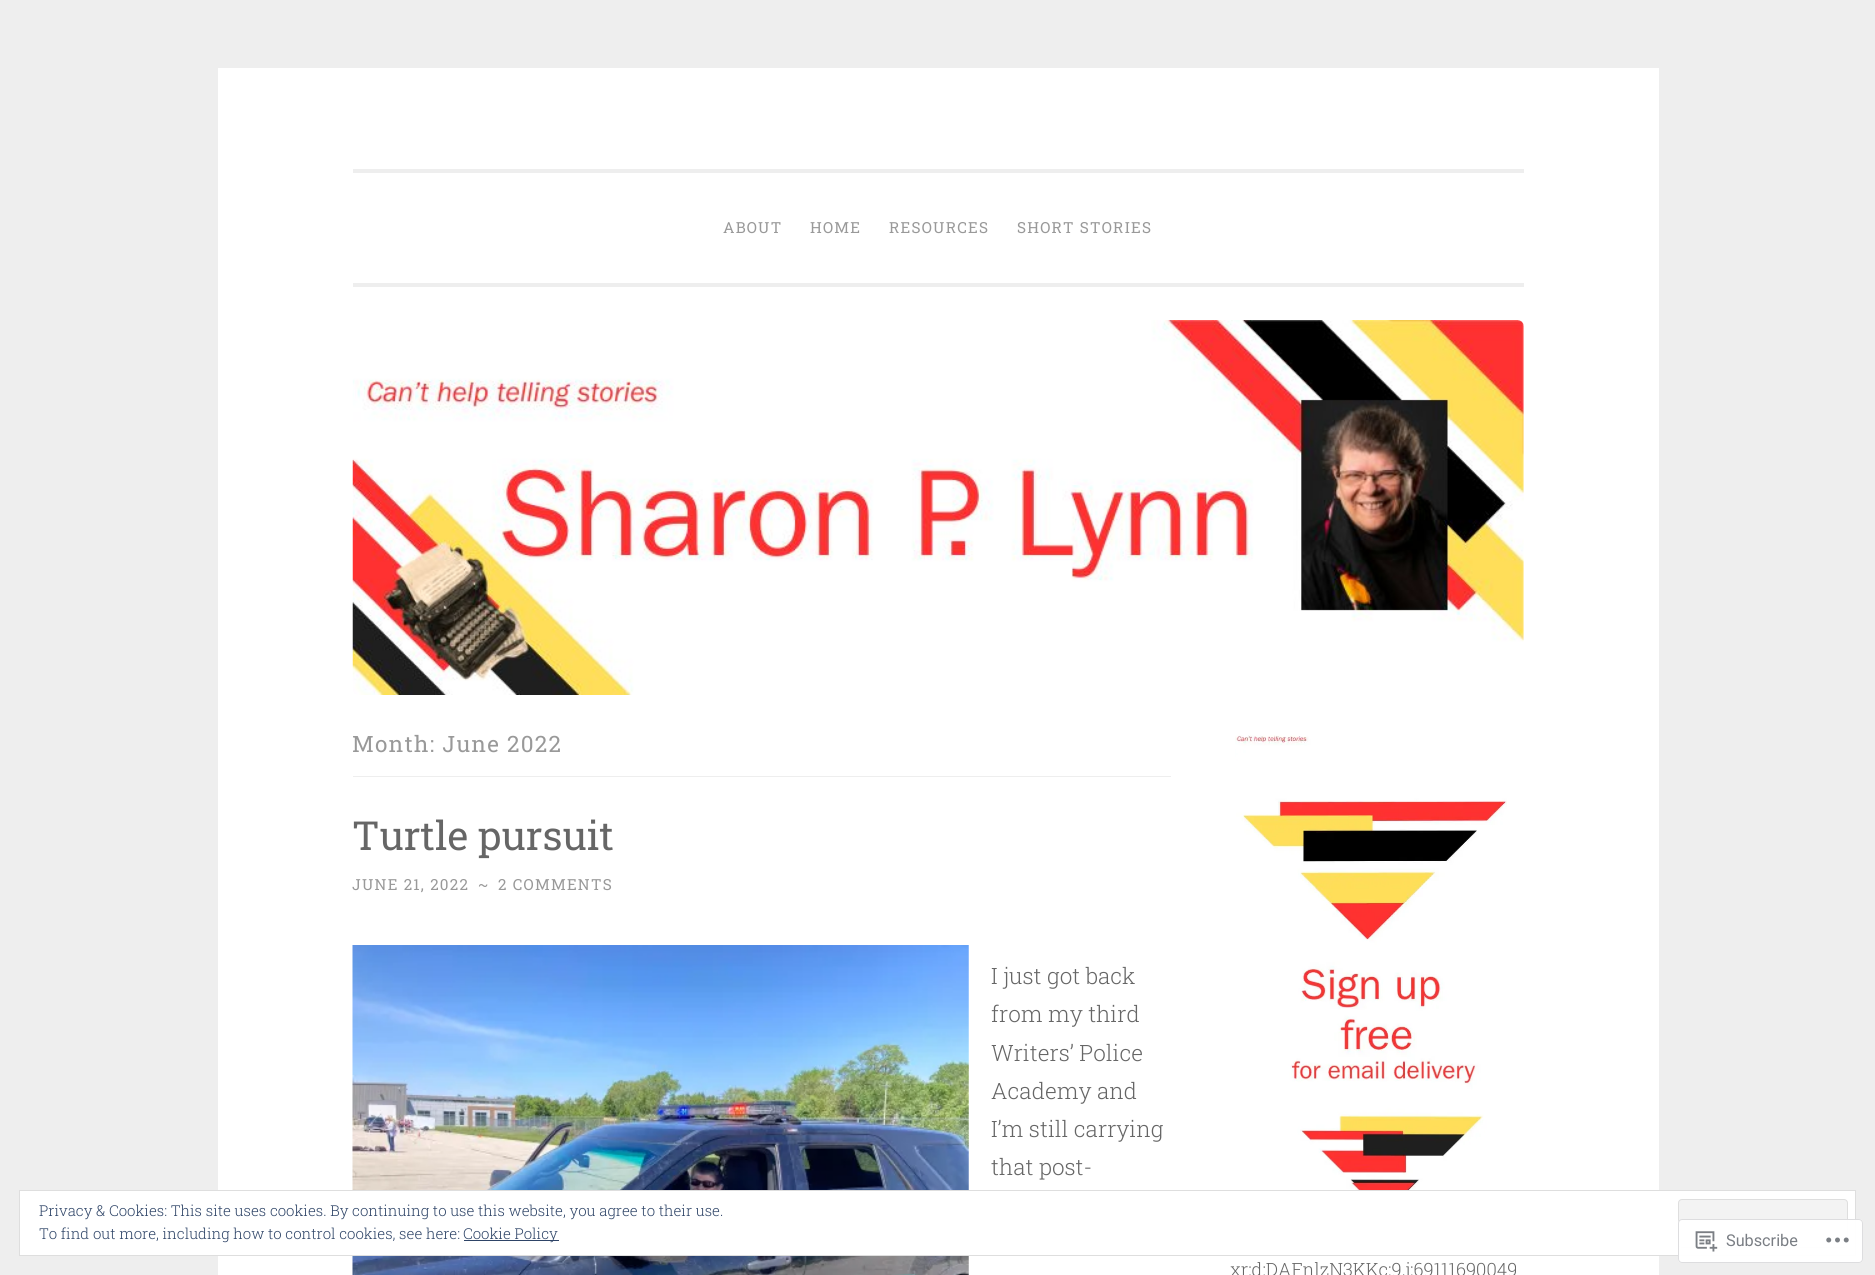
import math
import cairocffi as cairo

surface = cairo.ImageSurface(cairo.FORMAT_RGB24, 1875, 1275)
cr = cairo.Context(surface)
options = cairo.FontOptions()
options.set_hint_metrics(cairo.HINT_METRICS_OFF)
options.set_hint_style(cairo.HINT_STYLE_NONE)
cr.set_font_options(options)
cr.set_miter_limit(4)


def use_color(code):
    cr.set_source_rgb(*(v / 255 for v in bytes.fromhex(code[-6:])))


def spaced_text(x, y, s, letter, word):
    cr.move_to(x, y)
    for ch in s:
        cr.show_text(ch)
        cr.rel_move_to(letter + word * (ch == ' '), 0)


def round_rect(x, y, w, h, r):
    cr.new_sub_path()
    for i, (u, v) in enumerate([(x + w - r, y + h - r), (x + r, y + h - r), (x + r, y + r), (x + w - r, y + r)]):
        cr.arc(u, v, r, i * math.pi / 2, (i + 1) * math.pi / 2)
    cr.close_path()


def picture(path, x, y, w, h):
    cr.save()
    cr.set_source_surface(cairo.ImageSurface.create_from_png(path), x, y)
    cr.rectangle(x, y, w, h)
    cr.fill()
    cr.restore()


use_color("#eeeeee")
cr.paint()
use_color("#ffffff")
cr.rectangle(218, 68, 1441, 1207)
cr.fill()
use_color("#eeeeee")
cr.rectangle(353, 283, 1171, 4)
cr.fill()
cr.rectangle(353, 169, 1171, 4)
cr.fill()
cr.select_font_face("Roboto Slab")
cr.set_font_size(15.25)
use_color("#999999")
spaced_text(723, 233, "ABOUT", 1.25, 0)
spaced_text(810, 233, "HOME", 1.25, 0)
spaced_text(889, 233, "RESOURCES", 1.25, 0)
spaced_text(1017, 233, "SHORT STORIES", 1.25, 0)
picture("img1.png", 352, 320, 1172, 375)
use_color("#eeeeee")
cr.rectangle(353, 776, 818, 1)
cr.fill()
cr.set_font_size(22.5)
use_color("#999999")
spaced_text(352, 752, "Month: June 2022", 1.25, 0)
cr.set_font_size(40)
use_color("#666666")
cr.move_to(352, 850)
cr.show_text("Turtle pursuit")
cr.set_font_size(15.25)
use_color("#999999")
spaced_text(352, 890, "JUNE 21, 2022", 1.25, 0)
spaced_text(478, 890, "~", 1.25, 0)
spaced_text(498, 890, "2 COMMENTS", 1.25, 0)
picture("img2.png", 352, 945, 617, 330)
cr.select_font_face("Roboto Slab Light")
cr.set_font_size(22.5)
use_color("#666666")
cr.move_to(991, 984)
cr.show_text("I just got back")
cr.move_to(991, 1022)
cr.show_text("from my third")
cr.move_to(991, 1061)
cr.show_text("Writers’ Police")
cr.move_to(991, 1099)
cr.show_text("Academy and")
cr.move_to(991, 1137)
cr.show_text("I’m still carrying")
cr.move_to(991, 1175)
cr.show_text("that post-")
picture("img3.png", 1235, 735, 272, 455)
cr.set_font_size(18.25)
cr.move_to(1230, 1276)
cr.show_text("xr:d:DAFnlzN3KKc:9,j:69111690049")
use_color("#ffffff")
cr.rectangle(19.5, 1190.5, 1836, 65)
cr.fill_preserve()
use_color("#dedede")
cr.set_line_width(1)
cr.stroke()
cr.set_font_size(15)
use_color("#2e4467")
cr.move_to(39, 1216)
cr.show_text("Privacy & Cookies: This site uses cookies. By continuing to use this website, you agree to their use.")
use_color("#f3f3f3")
round_rect(1678.5, 1199.5, 169, 48, 3.5)
cr.fill_preserve()
use_color("#dedede")
cr.stroke()
use_color("#2e4467")
cr.move_to(39, 1239)
cr.show_text("To find out more, including how to control cookies, see here:")
cr.rectangle(464, 1240, 95, 1)
cr.fill()
cr.move_to(463, 1239)
cr.show_text("Cookie Policy")
cr.set_source_rgba(1, 1, 1, 0.98)
round_rect(1678, 1219, 185, 44, 4)
cr.fill()
round_rect(1678.5, 1219.5, 184, 43, 3.5)
cr.set_source_rgba(0.863, 0.863, 0.871, 0.98)
cr.stroke()
picture("img4.png", 1695, 1231, 23, 21)
cr.select_font_face("Roboto")
cr.set_font_size(16.25)
use_color("#7a7e84")
cr.move_to(1726, 1246)
cr.show_text("Subscribe")
picture("img5.png", 1826, 1237, 23, 6)
surface.write_to_png("result.png")
